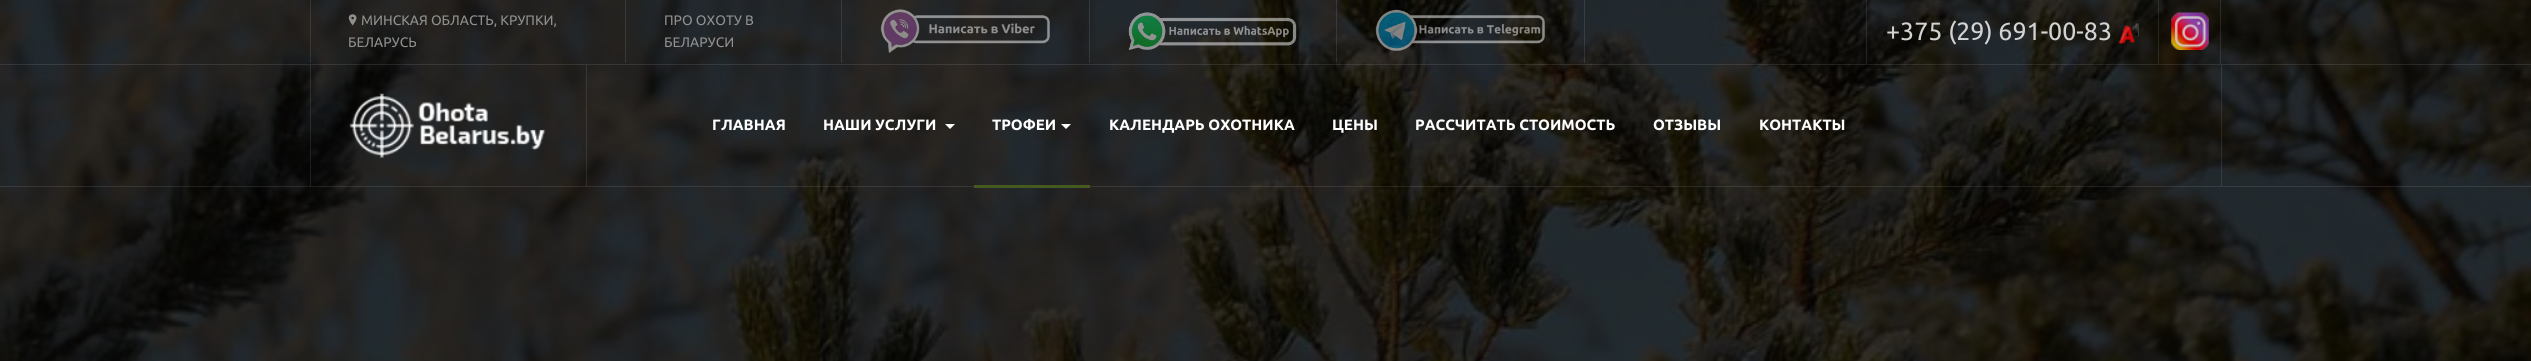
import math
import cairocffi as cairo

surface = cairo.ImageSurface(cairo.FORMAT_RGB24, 2531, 361)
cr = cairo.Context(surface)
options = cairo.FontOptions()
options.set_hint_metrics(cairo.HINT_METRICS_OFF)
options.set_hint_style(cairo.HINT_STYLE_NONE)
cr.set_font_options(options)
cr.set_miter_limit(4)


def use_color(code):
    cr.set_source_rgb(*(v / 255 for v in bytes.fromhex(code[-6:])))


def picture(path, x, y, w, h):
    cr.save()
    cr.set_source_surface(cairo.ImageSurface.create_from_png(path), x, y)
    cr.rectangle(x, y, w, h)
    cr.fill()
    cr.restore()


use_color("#ffffff")
cr.paint()
picture("img1.png", 0, 0, 2531, 361)
cr.set_source_rgba(1, 1, 1, 0.1)
cr.rectangle(0, 186, 2531, 1)
cr.fill()
cr.rectangle(0, 64, 2531, 1)
cr.fill()
cr.rectangle(310, 0, 1, 63)
cr.fill()
cr.rectangle(625, 0, 1, 63)
cr.fill()
picture("img2.png", 348, 14, 9, 12)
cr.select_font_face("Ubuntu")
cr.set_font_size(13.75)
use_color("#90908f")
cr.move_to(361, 25)
cr.show_text("МИНСКАЯ ОБЛАСТЬ, КРУПКИ,")
cr.move_to(348, 47)
cr.show_text("БЕЛАРУСЬ")
cr.set_source_rgba(1, 1, 1, 0.1)
cr.rectangle(841, 0, 1, 63)
cr.fill()
use_color("#90908f")
cr.move_to(664, 25)
cr.show_text("ПРО ОХОТУ В")
cr.move_to(664, 47)
cr.show_text("БЕЛАРУСИ")
cr.set_source_rgba(1, 1, 1, 0.1)
cr.rectangle(1089, 0, 1, 63)
cr.fill()
picture("img3.png", 880, 9, 170, 44)
cr.rectangle(1336, 0, 1, 63)
cr.fill()
picture("img4.png", 1128, 12, 169, 38)
cr.rectangle(1584, 0, 1, 63)
cr.fill()
picture("img5.png", 1375, 9, 170, 42)
cr.rectangle(2220, 0, 1, 64)
cr.fill()
cr.rectangle(1866, 0, 1, 64)
cr.fill()
cr.set_font_size(25)
use_color("#d1d2d1")
cr.move_to(1886, 40)
cr.show_text("+375 (29) 691-00-83")
picture("img6.png", 2118, 23, 21, 21)
cr.set_source_rgba(1, 1, 1, 0.1)
cr.rectangle(2158, 0, 1, 64)
cr.fill()
picture("img7.png", 2171, 12, 38, 38)
cr.rectangle(2221, 65, 1, 121)
cr.fill()
cr.rectangle(310, 65, 1, 121)
cr.fill()
cr.rectangle(586, 65, 1, 121)
cr.fill()
picture("img8.png", 349, 93, 197, 65)
cr.select_font_face("Ubuntu", cairo.FONT_SLANT_NORMAL, cairo.FONT_WEIGHT_BOLD)
cr.set_font_size(15)
use_color("#ffffff")
cr.move_to(712, 130)
cr.show_text("ГЛАВНАЯ")
cr.move_to(823, 130)
cr.show_text("НАШИ УСЛУГИ")
cr.new_path()
cr.move_to(945, 124)
cr.line_to(955, 124)
cr.line_to(950, 129)
cr.close_path()
cr.fill()
cr.move_to(992, 130)
cr.show_text("ТРОФЕИ")
cr.new_path()
cr.move_to(1061, 124)
cr.line_to(1071, 124)
cr.line_to(1066, 129)
cr.close_path()
cr.fill()
use_color("#455a21")
cr.rectangle(974, 185, 116, 3)
cr.fill()
use_color("#ffffff")
cr.move_to(1109, 130)
cr.show_text("КАЛЕНДАРЬ ОХОТНИКА")
cr.move_to(1332, 130)
cr.show_text("ЦЕНЫ")
cr.move_to(1415, 130)
cr.show_text("РАССЧИТАТЬ СТОИМОСТЬ")
cr.move_to(1653, 130)
cr.show_text("ОТЗЫВЫ")
cr.move_to(1759, 130)
cr.show_text("КОНТАКТЫ")
surface.write_to_png("result.png")
